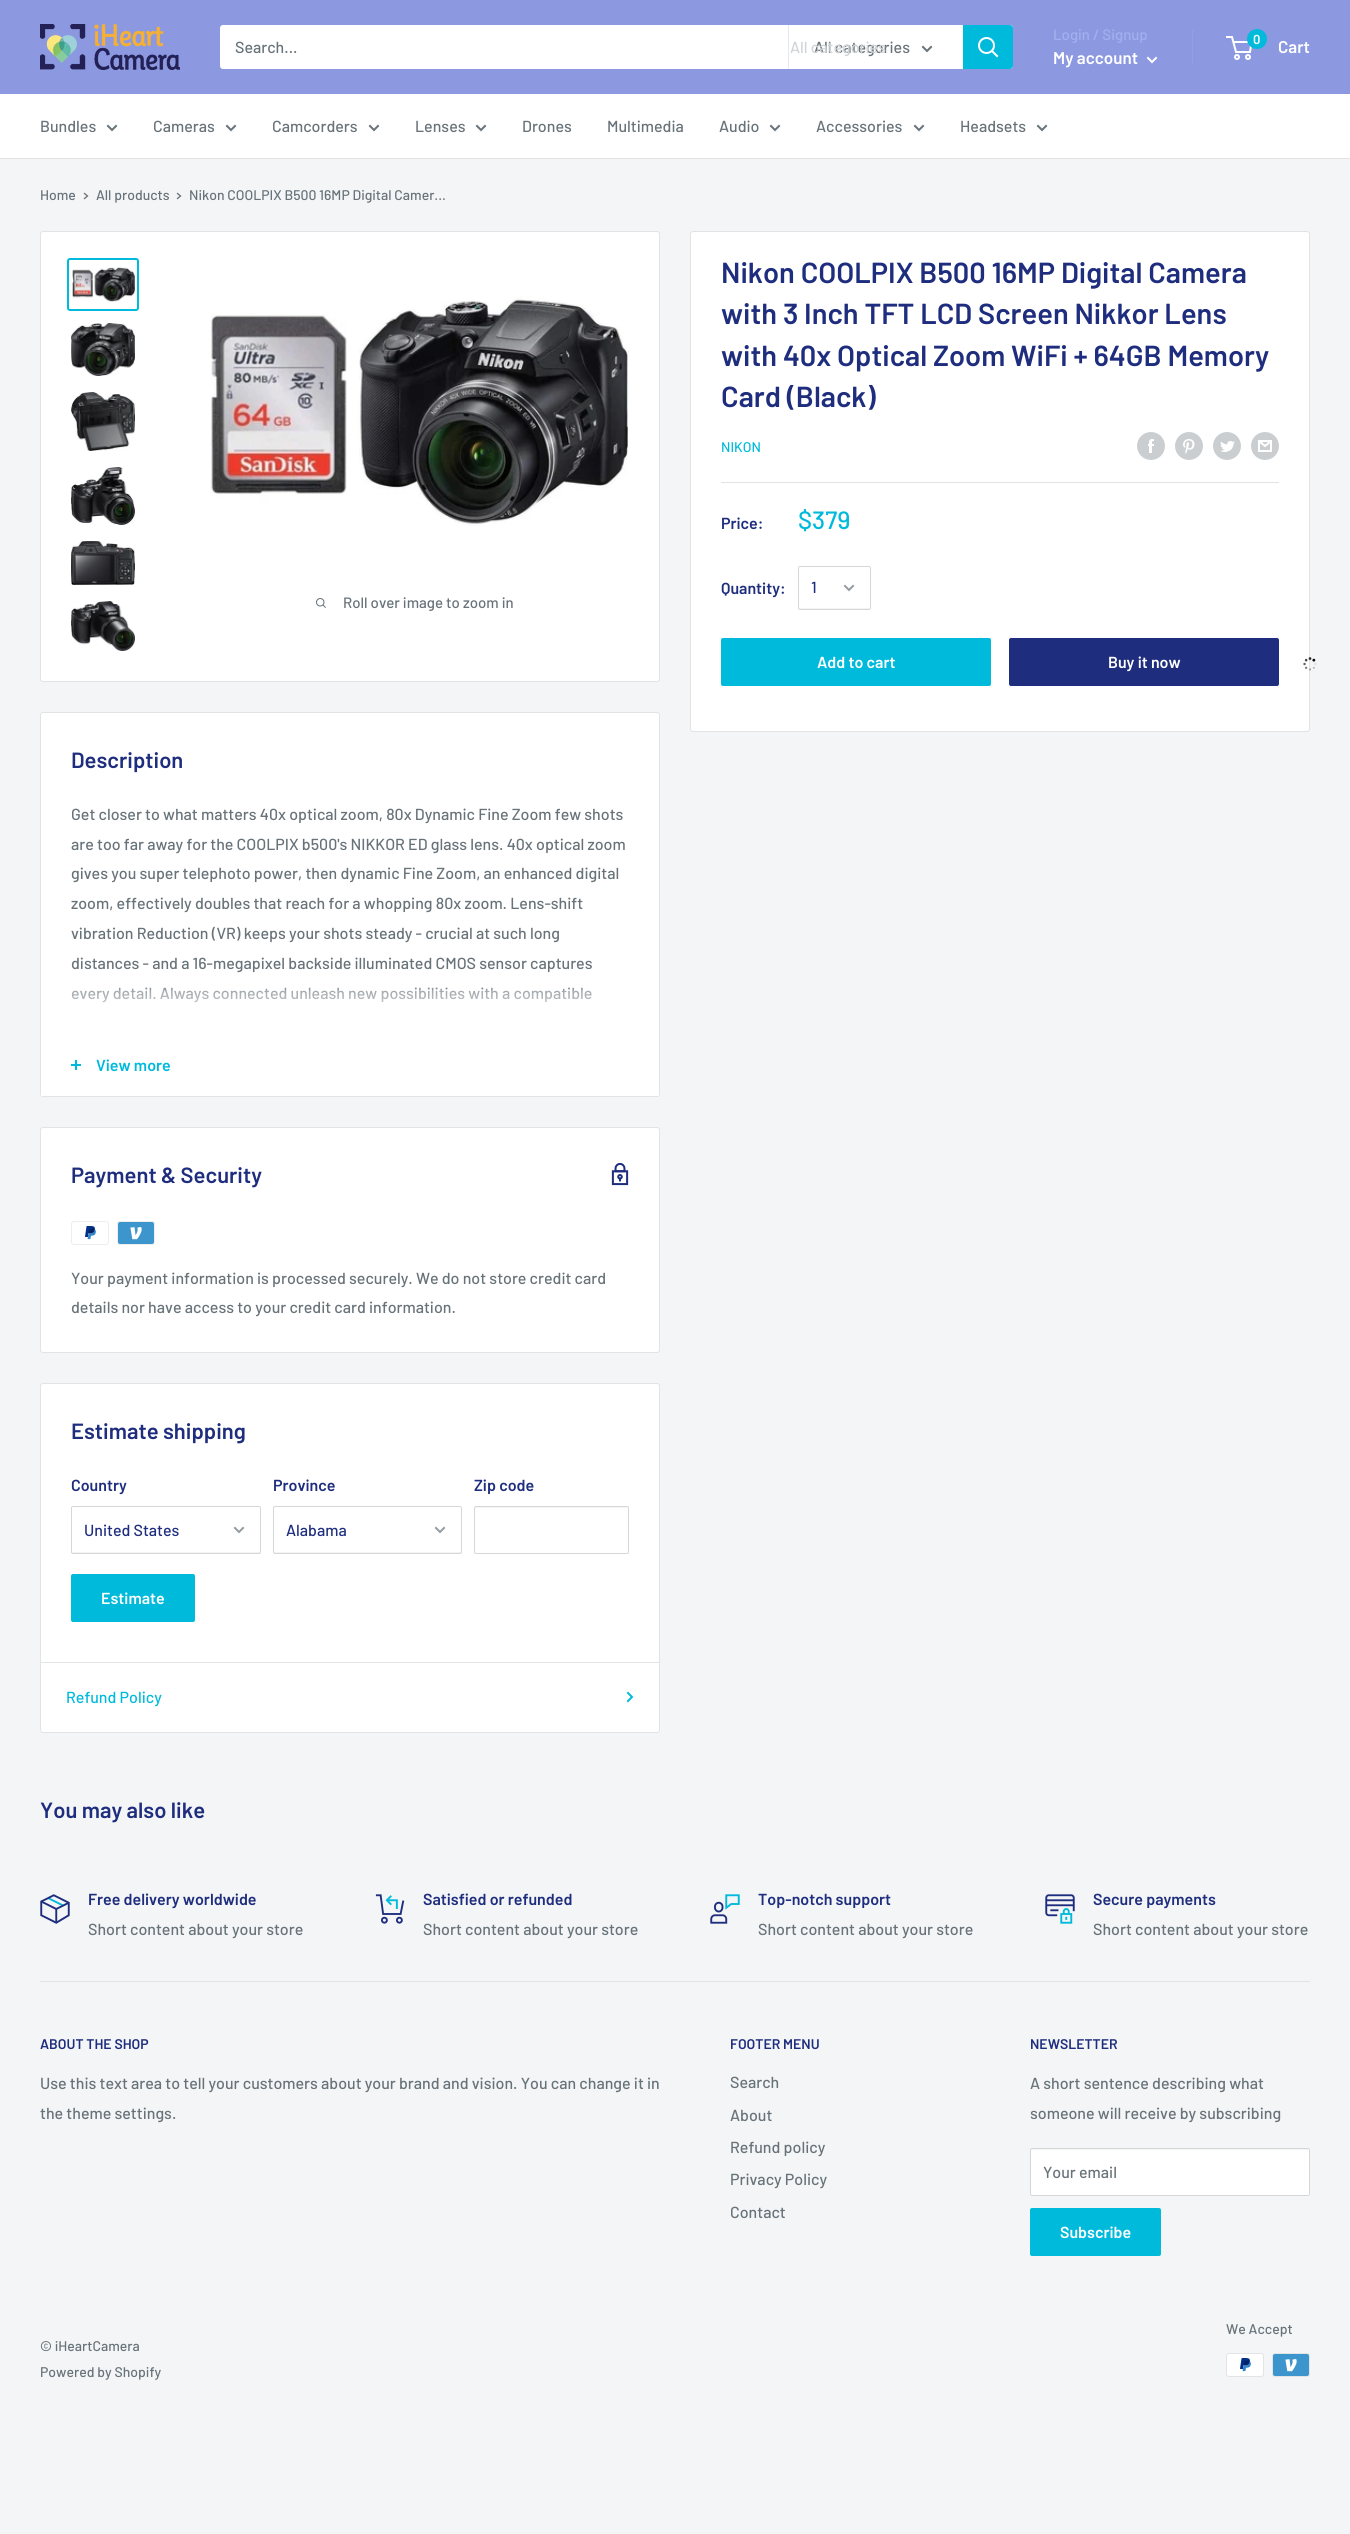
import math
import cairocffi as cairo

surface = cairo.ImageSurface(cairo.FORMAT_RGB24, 1350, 2534)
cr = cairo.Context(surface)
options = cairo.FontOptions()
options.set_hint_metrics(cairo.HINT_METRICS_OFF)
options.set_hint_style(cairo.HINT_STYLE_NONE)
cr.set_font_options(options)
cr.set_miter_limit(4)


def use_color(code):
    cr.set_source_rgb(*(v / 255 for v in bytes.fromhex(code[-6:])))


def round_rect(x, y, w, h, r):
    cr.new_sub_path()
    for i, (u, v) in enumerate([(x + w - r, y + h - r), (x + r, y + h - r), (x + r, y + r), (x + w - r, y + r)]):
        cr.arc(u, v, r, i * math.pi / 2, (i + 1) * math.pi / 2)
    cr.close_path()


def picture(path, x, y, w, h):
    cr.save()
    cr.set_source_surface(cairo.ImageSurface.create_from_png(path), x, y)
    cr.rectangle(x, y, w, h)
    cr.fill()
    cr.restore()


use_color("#f3f5f6")
cr.paint()
use_color("#8c99e0")
cr.rectangle(0, 0, 1350, 94)
cr.fill()
picture("img1.png", 40, 24, 140, 46)
use_color("#ffffff")
round_rect(220, 25, 793, 44, 3)
cr.fill()
cr.select_font_face("Barlow Medium")
cr.set_font_size(16)
use_color("#677279")
cr.move_to(235, 53)
cr.show_text("Search...")
use_color("#e3e7fa")
cr.rectangle(788, 25, 1, 44)
cr.fill()
use_color("#677279")
cr.move_to(814, 53)
cr.show_text("All categories")
use_color("#d1d4d7")
cr.move_to(790, 53)
cr.show_text("All categories")
cr.new_path()
cr.move_to(931, 47)
cr.line_to(927, 51)
cr.line_to(923, 47)
use_color("#677279")
cr.set_line_cap(cairo.LINE_CAP_SQUARE)
cr.stroke()
use_color("#00badb")
cr.new_path()
cr.move_to(963, 25)
cr.line_to(1010, 25)
cr.curve_to(1011.5, 25, 1013, 26.5, 1013, 28)
cr.line_to(1013, 66)
cr.curve_to(1013, 67.5, 1011.5, 69, 1010, 69)
cr.line_to(963, 69)
cr.close_path()
cr.fill()
cr.new_path()
cr.move_to(997, 56)
cr.line_to(992, 51)
use_color("#ffffff")
cr.stroke()
cr.arc(986.5, 45.5, 7.5, 0, 2 * math.pi)
cr.set_line_cap(cairo.LINE_CAP_BUTT)
cr.stroke()
cr.set_font_size(15)
use_color("#a3afef")
cr.move_to(1053, 40)
cr.show_text("Login / Signup")
use_color("#93a0e5")
cr.rectangle(1192, 30, 1, 34)
cr.fill()
cr.select_font_face("Barlow SemiBold")
cr.set_font_size(17)
use_color("#ffffff")
cr.move_to(1053, 64)
cr.show_text("My account")
cr.new_path()
cr.move_to(1156, 58)
cr.line_to(1152, 62)
cr.line_to(1148, 58)
cr.set_line_cap(cairo.LINE_CAP_SQUARE)
cr.stroke()
cr.arc(1237, 57, 2, 0, 2 * math.pi)
cr.set_line_cap(cairo.LINE_CAP_BUTT)
cr.stroke()
cr.arc(1248, 57, 2, 0, 2 * math.pi)
cr.stroke()
cr.new_path()
cr.move_to(1233.5, 42)
cr.line_to(1251.5, 42)
cr.line_to(1250, 52)
cr.line_to(1236, 52)
cr.line_to(1232, 37)
cr.line_to(1226, 37)
cr.stroke()
use_color("#00badb")
cr.arc(1257, 39, 10, 0, 2 * math.pi)
cr.fill()
cr.set_font_size(13)
use_color("#ffffff")
cr.move_to(1253, 44)
cr.show_text("0")
cr.set_font_size(17)
cr.move_to(1278, 53)
cr.show_text("Cart")
cr.rectangle(0, 94, 1350, 64)
cr.fill()
use_color("#e1e3e4")
cr.rectangle(0, 158, 1350, 1)
cr.fill()
cr.select_font_face("Barlow Medium")
cr.set_font_size(16)
use_color("#677279")
cr.move_to(40, 132)
cr.show_text("Bundles")
cr.new_path()
cr.move_to(116, 126)
cr.line_to(112, 130)
cr.line_to(108, 126)
cr.set_line_cap(cairo.LINE_CAP_SQUARE)
cr.stroke()
cr.move_to(153, 132)
cr.show_text("Cameras")
cr.new_path()
cr.move_to(235, 126)
cr.line_to(231, 130)
cr.line_to(227, 126)
cr.stroke()
cr.move_to(272, 132)
cr.show_text("Camcorders")
cr.new_path()
cr.move_to(378, 126)
cr.line_to(374, 130)
cr.line_to(370, 126)
cr.stroke()
cr.move_to(415, 132)
cr.show_text("Lenses")
cr.new_path()
cr.move_to(485, 126)
cr.line_to(481, 130)
cr.line_to(477, 126)
cr.stroke()
cr.move_to(522, 132)
cr.show_text("Drones")
cr.move_to(607, 132)
cr.show_text("Multimedia")
cr.move_to(719, 132)
cr.show_text("Audio")
cr.new_path()
cr.move_to(779, 126)
cr.line_to(775, 130)
cr.line_to(771, 126)
cr.stroke()
cr.move_to(816, 132)
cr.show_text("Accessories")
cr.new_path()
cr.move_to(923, 126)
cr.line_to(919, 130)
cr.line_to(915, 126)
cr.stroke()
cr.move_to(960, 132)
cr.show_text("Headsets")
cr.new_path()
cr.move_to(1046, 126)
cr.line_to(1042, 130)
cr.line_to(1038, 126)
cr.stroke()
cr.set_font_size(14)
cr.move_to(40, 200)
cr.show_text("Home")
cr.new_path()
cr.move_to(84.5, 193.5)
cr.line_to(87.5, 196)
cr.line_to(84.5, 198.5)
cr.set_line_width(1.3)
cr.stroke()
cr.move_to(96, 200)
cr.show_text("All products")
cr.new_path()
cr.move_to(177.5, 193.5)
cr.line_to(180.5, 196)
cr.line_to(177.5, 198.5)
cr.stroke()
cr.move_to(189, 200)
cr.show_text("Nikon COOLPIX B500 16MP Digital Camer...")
use_color("#ffffff")
round_rect(40.5, 231.5, 619, 450, 2.5)
cr.fill_preserve()
use_color("#e1e3e4")
cr.set_line_width(1)
cr.set_line_cap(cairo.LINE_CAP_BUTT)
cr.stroke()
round_rect(68, 259, 70, 51, 2)
use_color("#00badb")
cr.set_line_width(2)
cr.stroke()
picture("img2.png", 72, 266, 63, 36)
picture("img3.png", 71, 323, 64, 53)
picture("img4.png", 71, 392, 64, 59)
picture("img5.png", 71, 467, 64, 58)
picture("img6.png", 71, 541, 64, 44)
picture("img7.png", 71, 601, 64, 50)
picture("img8.png", 210, 296, 419, 230)
picture("img9.png", 316, 598, 10, 10)
cr.set_font_size(15)
use_color("#677279")
cr.move_to(343, 608)
cr.show_text("Roll over image to zoom in")
use_color("#ffffff")
round_rect(690.5, 231.5, 619, 500, 2.5)
cr.fill_preserve()
use_color("#e1e3e4")
cr.set_line_width(1)
cr.stroke()
cr.select_font_face("Barlow SemiBold")
cr.set_font_size(29)
use_color("#1e2d7d")
cr.move_to(721, 283)
cr.show_text("Nikon COOLPIX B500 16MP Digital Camera")
cr.move_to(721, 324)
cr.show_text("with 3 Inch TFT LCD Screen Nikkor Lens")
cr.move_to(721, 366)
cr.show_text("with 40x Optical Zoom WiFi + 64GB Memory")
cr.move_to(721, 407)
cr.show_text("Card (Black)")
cr.select_font_face("Barlow Medium")
cr.set_font_size(14)
use_color("#00badb")
cr.move_to(721, 452)
cr.show_text("NIKON")
picture("img10.png", 1137, 432, 28, 28)
picture("img11.png", 1175, 432, 28, 28)
picture("img12.png", 1213, 432, 28, 28)
picture("img13.png", 1251, 432, 28, 28)
use_color("#e1e3e4")
cr.rectangle(721, 482, 558, 1)
cr.fill()
cr.select_font_face("Barlow SemiBold")
cr.set_font_size(16)
use_color("#1e2d7d")
cr.move_to(721, 529)
cr.show_text("Price:")
cr.select_font_face("Barlow Medium")
cr.set_font_size(25)
use_color("#00badb")
cr.move_to(798, 529)
cr.show_text("$379")
cr.select_font_face("Barlow SemiBold")
cr.set_font_size(16)
use_color("#1e2d7d")
cr.move_to(721, 594)
cr.show_text("Quantity:")
use_color("#f2f3f3")
cr.new_path()
cr.move_to(799, 607)
cr.curve_to(799, 608, 799, 609, 800, 609)
cr.line_to(869, 609)
cr.line_to(870, 607)
cr.line_to(869, 608)
cr.line_to(812, 608)
cr.line_to(800, 608)
cr.close_path()
cr.fill()
round_rect(798.5, 566.5, 72, 43, 1.5)
use_color("#d4d6d8")
cr.stroke()
cr.select_font_face("Barlow Medium")
use_color("#1e2d7d")
cr.move_to(811, 593)
cr.show_text("1")
cr.new_path()
cr.move_to(853, 586)
cr.line_to(849, 590)
cr.line_to(845, 586)
use_color("#959ca1")
cr.set_line_width(2)
cr.set_line_cap(cairo.LINE_CAP_SQUARE)
cr.stroke()
use_color("#00badb")
round_rect(721, 638, 270, 48, 2)
cr.fill()
cr.select_font_face("Barlow SemiBold")
use_color("#ffffff")
cr.move_to(817, 668)
cr.show_text("Add to cart")
use_color("#1e2d7d")
round_rect(1009, 638, 270, 48, 2)
cr.fill()
use_color("#ffffff")
cr.move_to(1108, 668)
cr.show_text("Buy it now")
picture("img14.png", 1303, 657, 14, 14)
round_rect(40.5, 712.5, 619, 384, 2.5)
cr.fill_preserve()
use_color("#e1e3e4")
cr.set_line_width(1)
cr.set_line_cap(cairo.LINE_CAP_BUTT)
cr.stroke()
cr.set_font_size(22)
use_color("#1e2d7d")
cr.move_to(71, 768)
cr.show_text("Description")
cr.select_font_face("Barlow Medium")
cr.set_font_size(16)
use_color("#677279")
cr.move_to(71, 820)
cr.show_text("Get closer to what matters 40x optical zoom, 80x Dynamic Fine Zoom few shots")
cr.move_to(71, 850)
cr.show_text("are too far away for the COOLPIX b500's NIKKOR ED glass lens. 40x optical zoom")
cr.move_to(71, 879)
cr.show_text("gives you super telephoto power, then dynamic Fine Zoom, an enhanced digital")
cr.move_to(71, 909)
cr.show_text("zoom, effectively doubles that reach for a whopping 80x zoom. Lens-shift")
cr.move_to(71, 939)
cr.show_text("vibration Reduction (VR) keeps your shots steady - crucial at such long")
cr.move_to(71, 969)
cr.show_text("distances - and a 16-megapixel backside illuminated CMOS sensor captures")
cr.move_to(71, 999)
cr.show_text("every detail. Always connected unleash new possibilities with a compatible")
use_color("#ffffff")
cr.rectangle(41, 1094, 618, 2)
cr.fill()
gradient = cairo.LinearGradient(350, 984, 350, 1034)
gradient.add_color_stop_rgba(0, 1, 1, 1, 0)
gradient.add_color_stop_rgba(0.15, 1, 1, 1, 0.4)
gradient.add_color_stop_rgba(1, 1, 1, 1, 1)
cr.set_source(gradient)
cr.rectangle(71, 987, 521, 16)
cr.fill()
use_color("#00badb")
cr.rectangle(75, 1060, 2, 10)
cr.fill()
cr.rectangle(71, 1064, 10, 2)
cr.fill()
cr.select_font_face("Barlow SemiBold")
cr.move_to(96, 1071)
cr.show_text("View more")
use_color("#ffffff")
round_rect(40.5, 1127.5, 619, 225, 2.5)
cr.fill_preserve()
use_color("#e1e3e4")
cr.stroke()
cr.set_font_size(22)
use_color("#1e2d7d")
cr.move_to(71, 1183)
cr.show_text("Payment & Security")
picture("img15.png", 611, 1162, 18, 24)
picture("img16.png", 71, 1221, 38, 24)
picture("img17.png", 117, 1221, 38, 24)
cr.select_font_face("Barlow Medium")
cr.set_font_size(16)
use_color("#677279")
cr.move_to(71, 1284)
cr.show_text("Your payment information is processed securely. We do not store credit card")
cr.move_to(71, 1313)
cr.show_text("details nor have access to your credit card information.")
use_color("#ffffff")
round_rect(40.5, 1383.5, 619, 349, 2.5)
cr.fill_preserve()
use_color("#e1e3e4")
cr.stroke()
cr.select_font_face("Barlow SemiBold")
cr.set_font_size(22)
use_color("#1e2d7d")
cr.move_to(71, 1439)
cr.show_text("Estimate shipping")
cr.set_font_size(16)
cr.move_to(71, 1491)
cr.show_text("Country")
use_color("#f2f3f3")
cr.new_path()
cr.move_to(72, 1551)
cr.curve_to(72, 1552, 72, 1553, 73, 1553)
cr.line_to(260, 1553)
cr.line_to(260, 1551)
cr.line_to(260, 1552)
cr.line_to(73, 1552)
cr.curve_to(72, 1552, 72, 1552, 72, 1551)
cr.close_path()
cr.fill()
round_rect(71.5, 1506.5, 189, 47, 1.5)
use_color("#d4d6d8")
cr.stroke()
cr.select_font_face("Barlow Medium")
use_color("#1e2d7d")
cr.move_to(84, 1536)
cr.show_text("United States")
cr.new_path()
cr.move_to(243, 1528)
cr.line_to(239, 1532)
cr.line_to(235, 1528)
use_color("#959ca1")
cr.set_line_width(2)
cr.set_line_cap(cairo.LINE_CAP_SQUARE)
cr.stroke()
cr.select_font_face("Barlow SemiBold")
use_color("#1e2d7d")
cr.move_to(273, 1491)
cr.show_text("Province")
use_color("#f2f3f3")
cr.new_path()
cr.move_to(274, 1551)
cr.curve_to(274, 1552, 274, 1553, 275, 1553)
cr.line_to(461, 1553)
cr.line_to(461, 1551)
cr.curve_to(461, 1552, 461, 1552, 460, 1552)
cr.line_to(274, 1552)
cr.close_path()
cr.fill()
round_rect(273.5, 1506.5, 188, 47, 1.5)
use_color("#d4d6d8")
cr.set_line_width(1)
cr.set_line_cap(cairo.LINE_CAP_BUTT)
cr.stroke()
cr.select_font_face("Barlow Medium")
use_color("#1e2d7d")
cr.move_to(286, 1536)
cr.show_text("Alabama")
cr.new_path()
cr.move_to(444, 1528)
cr.line_to(440, 1532)
cr.line_to(436, 1528)
use_color("#959ca1")
cr.set_line_width(2)
cr.set_line_cap(cairo.LINE_CAP_SQUARE)
cr.stroke()
cr.select_font_face("Barlow SemiBold")
use_color("#1e2d7d")
cr.move_to(474, 1491)
cr.show_text("Zip code")
use_color("#f4f5f5")
cr.new_path()
cr.move_to(476, 1508)
cr.line_to(627, 1508)
cr.curve_to(628, 1508, 628, 1508, 628, 1509)
cr.curve_to(628, 1508, 628, 1507, 627, 1507)
cr.line_to(475, 1507)
cr.line_to(475, 1509)
cr.curve_to(475, 1508, 475, 1508, 476, 1508)
cr.close_path()
cr.fill()
round_rect(474.5, 1506.5, 154, 47, 1.5)
use_color("#d4d6d8")
cr.set_line_width(1)
cr.set_line_cap(cairo.LINE_CAP_BUTT)
cr.stroke()
use_color("#00badb")
round_rect(71, 1574, 124, 48, 2)
cr.fill()
use_color("#ffffff")
cr.move_to(101, 1604)
cr.show_text("Estimate")
use_color("#e1e3e4")
cr.rectangle(41, 1662, 618, 1)
cr.fill()
cr.select_font_face("Barlow Medium")
use_color("#00badb")
cr.move_to(66, 1703)
cr.show_text("Refund Policy")
cr.new_path()
cr.move_to(628, 1693)
cr.line_to(632, 1697)
cr.line_to(628, 1701)
cr.set_line_width(2)
cr.set_line_cap(cairo.LINE_CAP_SQUARE)
cr.stroke()
cr.select_font_face("Barlow SemiBold")
cr.set_font_size(22)
use_color("#1e2d7d")
cr.move_to(40, 1818)
cr.show_text("You may also like")
picture("img18.png", 40, 1894, 30, 30)
cr.set_font_size(16)
cr.move_to(88, 1905)
cr.show_text("Free delivery worldwide")
cr.select_font_face("Barlow Medium")
use_color("#677279")
cr.move_to(88, 1935)
cr.show_text("Short content about your store")
picture("img19.png", 375, 1894, 30, 30)
cr.select_font_face("Barlow SemiBold")
use_color("#1e2d7d")
cr.move_to(423, 1905)
cr.show_text("Satisfied or refunded")
cr.select_font_face("Barlow Medium")
use_color("#677279")
cr.move_to(423, 1935)
cr.show_text("Short content about your store")
picture("img20.png", 710, 1894, 30, 30)
cr.select_font_face("Barlow SemiBold")
use_color("#1e2d7d")
cr.move_to(758, 1905)
cr.show_text("Top-notch support")
cr.select_font_face("Barlow Medium")
use_color("#677279")
cr.move_to(758, 1935)
cr.show_text("Short content about your store")
picture("img21.png", 1045, 1894, 30, 30)
cr.select_font_face("Barlow SemiBold")
use_color("#1e2d7d")
cr.move_to(1093, 1905)
cr.show_text("Secure payments")
cr.select_font_face("Barlow Medium")
use_color("#677279")
cr.move_to(1093, 1935)
cr.show_text("Short content about your store")
use_color("#e1e3e4")
cr.rectangle(40, 1981, 1270, 1)
cr.fill()
cr.select_font_face("Barlow SemiBold")
cr.set_font_size(14)
use_color("#1e2d7d")
cr.move_to(40, 2049)
cr.show_text("ABOUT THE SHOP")
cr.select_font_face("Barlow Medium")
cr.set_font_size(16)
use_color("#677279")
cr.move_to(40, 2089)
cr.show_text("Use this text area to tell your customers about your brand and vision. You can change it in")
cr.move_to(40, 2119)
cr.show_text("the theme settings.")
cr.select_font_face("Barlow SemiBold")
cr.set_font_size(14)
use_color("#1e2d7d")
cr.move_to(730, 2049)
cr.show_text("FOOTER MENU")
cr.select_font_face("Barlow Medium")
cr.set_font_size(16)
use_color("#677279")
cr.move_to(730, 2088)
cr.show_text("Search")
cr.move_to(730, 2121)
cr.show_text("About")
cr.move_to(730, 2153)
cr.show_text("Refund policy")
cr.move_to(730, 2185)
cr.show_text("Privacy Policy")
cr.move_to(730, 2218)
cr.show_text("Contact")
cr.select_font_face("Barlow SemiBold")
cr.set_font_size(14)
use_color("#1e2d7d")
cr.move_to(1030, 2049)
cr.show_text("NEWSLETTER")
cr.select_font_face("Barlow Medium")
cr.set_font_size(16)
use_color("#677279")
cr.move_to(1030, 2089)
cr.show_text("A short sentence describing what")
cr.move_to(1030, 2119)
cr.show_text("someone will receive by subscribing")
use_color("#ffffff")
round_rect(1030, 2148, 280, 48, 2)
cr.fill()
use_color("#f4f5f5")
cr.new_path()
cr.move_to(1032, 2150)
cr.line_to(1308, 2150)
cr.curve_to(1309, 2150, 1309, 2150, 1309, 2151)
cr.curve_to(1309, 2150, 1309, 2149, 1308, 2149)
cr.line_to(1032, 2149)
cr.line_to(1031, 2149)
cr.line_to(1031, 2151)
cr.curve_to(1031, 2150, 1031, 2150, 1032, 2150)
cr.close_path()
cr.fill()
round_rect(1030.5, 2148.5, 279, 47, 1.5)
use_color("#d4d6d8")
cr.set_line_width(1)
cr.set_line_cap(cairo.LINE_CAP_BUTT)
cr.stroke()
use_color("#677279")
cr.move_to(1043, 2178)
cr.show_text("Your email")
use_color("#00badb")
round_rect(1030, 2208, 131, 48, 2)
cr.fill()
cr.select_font_face("Barlow SemiBold")
use_color("#ffffff")
cr.move_to(1060, 2238)
cr.show_text("Subscribe")
cr.select_font_face("Barlow Medium")
cr.set_font_size(14)
use_color("#677279")
cr.move_to(1226, 2334)
cr.show_text("We Accept")
picture("img22.png", 1226, 2353, 38, 24)
picture("img23.png", 1272, 2353, 38, 24)
cr.move_to(40, 2351)
cr.show_text("© iHeartCamera")
cr.move_to(40, 2377)
cr.show_text("Powered by Shopify")
surface.write_to_png("result.png")
